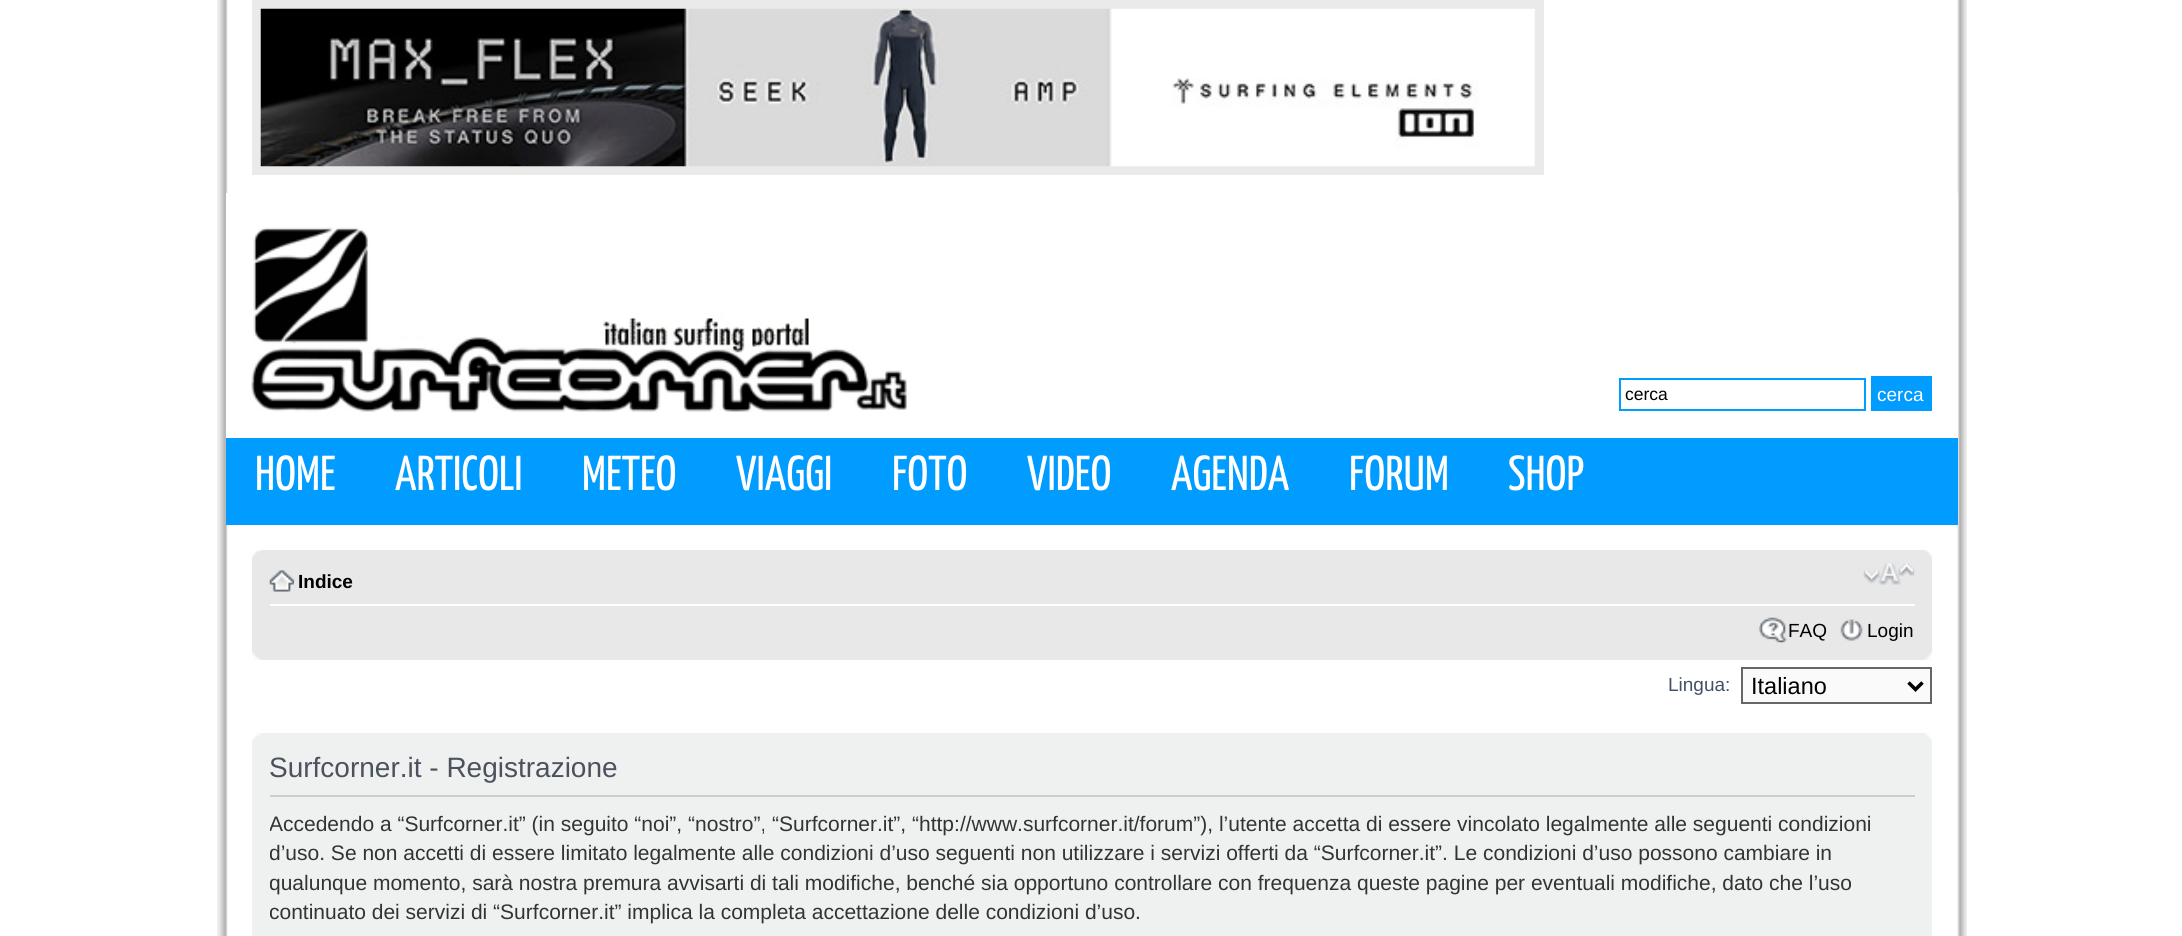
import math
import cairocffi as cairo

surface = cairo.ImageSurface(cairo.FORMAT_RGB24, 2182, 936)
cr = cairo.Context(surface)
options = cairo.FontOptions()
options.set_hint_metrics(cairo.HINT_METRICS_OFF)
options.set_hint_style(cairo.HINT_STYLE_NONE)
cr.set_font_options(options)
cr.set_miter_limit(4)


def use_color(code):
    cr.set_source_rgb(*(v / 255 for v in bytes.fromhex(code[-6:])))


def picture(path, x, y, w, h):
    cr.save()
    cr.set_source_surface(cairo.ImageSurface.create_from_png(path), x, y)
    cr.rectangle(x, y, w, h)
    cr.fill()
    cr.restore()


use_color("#ffffff")
cr.paint()
picture("img1.png", 217, 0, 1750, 936)
use_color("#eaeaea")
cr.rectangle(252, 0, 1292, 175)
cr.fill()
picture("img2.png", 260, 8, 1275, 159)
use_color("#ffffff")
cr.rectangle(226, 193, 1732, 245)
cr.fill()
picture("img3.png", 251, 227, 656, 185)
cr.rectangle(1620, 379, 245, 31)
use_color("#009cff")
cr.stroke()
cr.select_font_face("Liberation Sans")
cr.set_font_size(17.5)
use_color("#000000")
cr.move_to(1625, 400)
cr.show_text("cerca")
use_color("#009cff")
cr.rectangle(1871, 376, 61, 35)
cr.fill()
cr.set_font_size(19)
use_color("#ffffff")
cr.move_to(1877, 401)
cr.show_text("cerca")
use_color("#009cff")
cr.rectangle(226, 438, 1732, 87)
cr.fill()
cr.select_font_face("Yanone Kaffeesatz ExtraLight")
cr.set_font_size(49)
use_color("#ffffff")
cr.move_to(255, 490)
cr.show_text("HOME")
cr.move_to(395, 490)
cr.show_text("ARTICOLI")
cr.move_to(582, 490)
cr.show_text("METEO")
cr.move_to(736, 490)
cr.show_text("VIAGGI")
cr.move_to(892, 490)
cr.show_text("FOTO")
cr.move_to(1027, 490)
cr.show_text("VIDEO")
cr.move_to(1171, 490)
cr.show_text("AGENDA")
cr.move_to(1349, 490)
cr.show_text("FORUM")
cr.move_to(1508, 490)
cr.show_text("SHOP")
use_color("#e8e8e8")
cr.rectangle(252, 550, 1680, 110)
cr.fill()
picture("img4.png", 252, 550, 10, 8)
picture("img5.png", 1924, 550, 8, 8)
use_color("#ffffff")
cr.rectangle(270, 604, 1645, 2)
cr.fill()
picture("img6.png", 269, 570, 25, 22)
cr.select_font_face("Liberation Sans", cairo.FONT_SLANT_NORMAL, cairo.FONT_WEIGHT_BOLD)
cr.set_font_size(19)
use_color("#000000")
cr.move_to(298, 588)
cr.show_text("Indice")
picture("img7.png", 1863, 563, 52, 22)
picture("img8.png", 1759, 617, 28, 26)
cr.select_font_face("Liberation Sans")
cr.move_to(1788, 637)
cr.show_text("FAQ")
picture("img9.png", 1840, 619, 23, 22)
cr.move_to(1867, 637)
cr.show_text("Login")
picture("img10.png", 252, 651, 9, 9)
picture("img11.png", 1924, 651, 8, 9)
use_color("#425067")
cr.move_to(1668, 691)
cr.show_text("Lingua:")
use_color("#fafafa")
cr.rectangle(1742, 668, 189, 35)
cr.fill_preserve()
use_color("#666666")
cr.stroke()
cr.new_path()
cr.move_to(1908.5, 682.5)
cr.line_to(1915.5, 689.5)
cr.line_to(1922.5, 682.5)
use_color("#000000")
cr.set_line_width(3.5)
cr.stroke()
cr.set_font_size(23.5)
cr.move_to(1751, 694)
cr.show_text("Italiano")
use_color("#eff0f0")
cr.rectangle(252, 733, 1680, 203)
cr.fill()
picture("img12.png", 252, 733, 9, 8)
picture("img13.png", 1925, 733, 7, 8)
use_color("#cccccc")
cr.rectangle(270, 795, 1645, 2)
cr.fill()
cr.set_font_size(28)
use_color("#4c525d")
cr.move_to(269, 777)
cr.show_text("Surfcorner.it - Registrazione")
cr.save()
cr.rectangle(270, 742, 1645, 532)
cr.clip()
cr.set_font_size(21)
use_color("#333333")
cr.move_to(269, 831)
cr.show_text("Accedendo a “Surfcorner.it” (in seguito “noi”, “nostro”,")
cr.restore()
cr.set_font_size(21)
use_color("#333333")
cr.move_to(772, 831)
cr.show_text("“Surfcorner.it”, “http://www.surfcorner.it/forum”), l’utente accetta di essere vincolato legalmente alle seguenti condizioni")
cr.save()
cr.rectangle(270, 742, 1645, 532)
cr.clip()
cr.move_to(269, 860)
cr.show_text("d’uso. Se non accetti di essere limitato legalmente alle condizioni d’uso seguenti non utilizzare i servizi offerti da “Surfcorner.it”. Le condizioni d’uso possono cambiare in")
cr.move_to(269, 890)
cr.show_text("qualunque momento, sarà nostra premura avvisarti di tali modifiche, benché sia opportuno controllare con frequenza queste pagine per eventuali modifiche, dato che l’uso")
cr.move_to(269, 919)
cr.show_text("continuato dei servizi di “Surfcorner.it” implica la completa accettazione delle condizioni d’uso.")
cr.restore()
surface.write_to_png("result.png")
